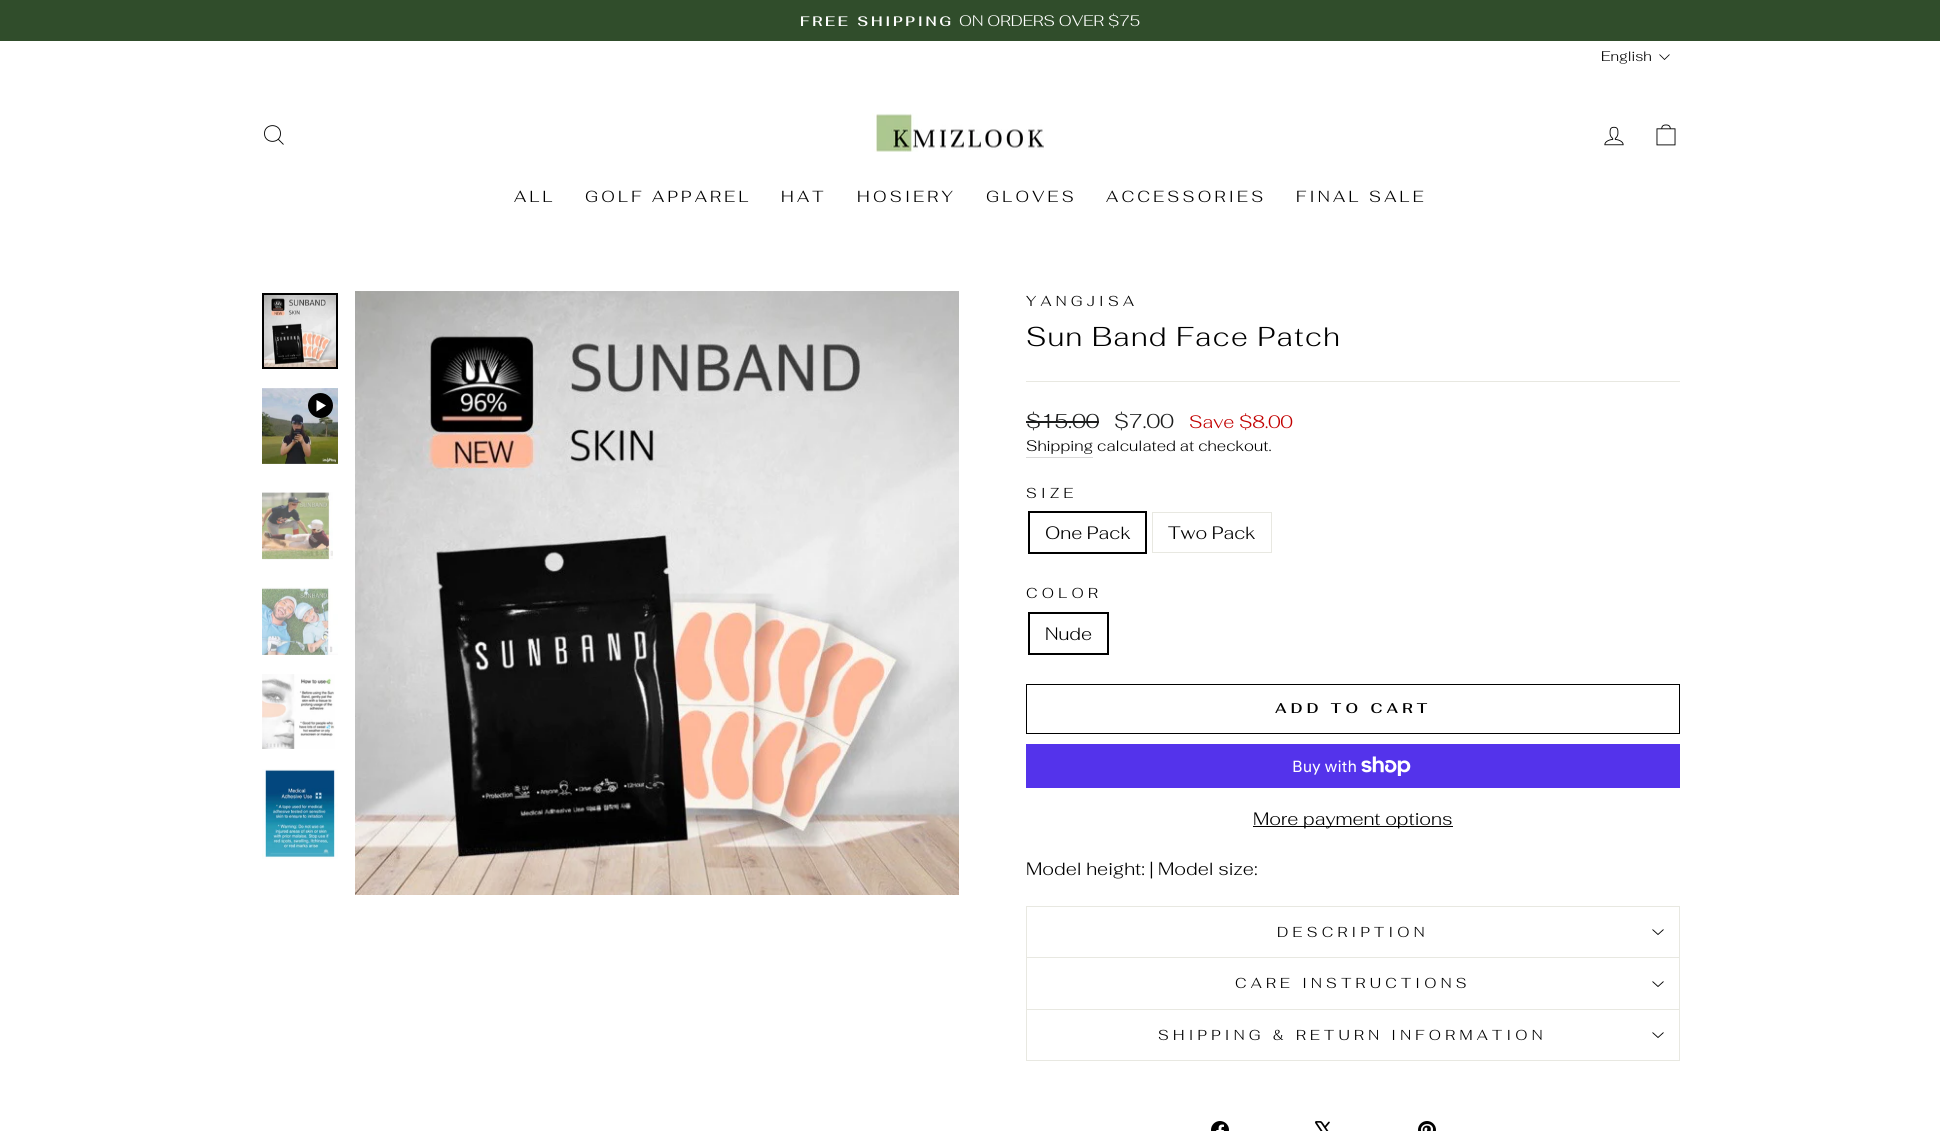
import math
import cairocffi as cairo

surface = cairo.ImageSurface(cairo.FORMAT_RGB24, 1940, 1131)
cr = cairo.Context(surface)
options = cairo.FontOptions()
options.set_hint_metrics(cairo.HINT_METRICS_OFF)
options.set_hint_style(cairo.HINT_STYLE_NONE)
cr.set_font_options(options)
cr.set_miter_limit(4)


def use_color(code):
    cr.set_source_rgb(*(v / 255 for v in bytes.fromhex(code[-6:])))


def spaced_text(x, y, s, letter, word):
    cr.move_to(x, y)
    for ch in s:
        cr.show_text(ch)
        cr.rel_move_to(letter + word * (ch == ' '), 0)


def picture(path, x, y, w, h):
    cr.save()
    cr.set_source_surface(cairo.ImageSurface.create_from_png(path), x, y)
    cr.rectangle(x, y, w, h)
    cr.fill()
    cr.restore()


use_color("#ffffff")
cr.paint()
use_color("#304d2b")
cr.rectangle(0, 0, 1940, 41)
cr.fill()
cr.select_font_face("Fahkwang SemiBold")
cr.set_font_size(13.75)
use_color("#ffffff")
spaced_text(800, 26, "FREE SHIPPING", 2.75, 0)
cr.select_font_face("Fahkwang Light")
cr.set_font_size(15.25)
cr.move_to(959, 26)
cr.show_text("ON ORDERS OVER $75")
cr.set_font_size(14)
use_color("#000000")
cr.move_to(1601, 61)
cr.show_text("English")
cr.new_path()
cr.move_to(1659.5, 54.5)
cr.line_to(1664.5, 59.5)
cr.line_to(1669.5, 54.5)
cr.set_line_width(0.8)
cr.stroke()
cr.new_path()
cr.move_to(280.5, 133.5)
cr.curve_to(280.5, 144, 264.5, 144, 264.5, 133.5)
cr.curve_to(264.5, 123, 280.5, 123, 280.5, 133.5)
cr.close_path()
cr.move_to(283.5, 144.5)
cr.line_to(278.5, 139.5)
cr.set_line_width(0.9)
cr.stroke()
picture("img1.png", 872, 113, 172, 39)
picture("img2.png", 1604, 126, 20, 20)
picture("img3.png", 1656, 124, 20, 22)
cr.set_font_size(16)
spaced_text(514, 202, "ALL", 3.25, 0)
spaced_text(585, 202, "GOLF APPAREL", 3.25, 0)
spaced_text(781, 202, "HAT", 3.25, 0)
spaced_text(857, 202, "HOSIERY", 3.25, 0)
spaced_text(986, 202, "GLOVES", 3.25, 0)
spaced_text(1106, 202, "ACCESSORIES", 3.25, 0)
spaced_text(1296, 202, "FINAL SALE", 3.25, 0)
picture("img4.png", 264, 295, 72, 72)
cr.rectangle(263, 294, 74, 74)
cr.set_line_width(2)
cr.stroke()
picture("img5.png", 262, 388, 76, 76)
cr.arc(320.5, 405.5, 12.5, 0, 2 * math.pi)
cr.fill()
use_color("#ffffff")
cr.new_path()
cr.move_to(316.5, 400)
cr.line_to(316.5, 411.5)
cr.line_to(326, 405.5)
cr.close_path()
cr.fill()
picture("img6.png", 262, 492, 71, 68)
picture("img7.png", 262, 587, 76, 68)
picture("img8.png", 262, 674, 73, 75)
picture("img9.png", 262, 769, 76, 90)
picture("img10.png", 355, 291, 604, 604)
cr.set_font_size(14.4)
use_color("#000000")
spaced_text(1026, 306, "YANGJISA", 4.3, 0)
cr.set_font_size(27.25)
spaced_text(1026, 346, "Sun Band Face Patch", 1.4, 0)
use_color("#e8e8e1")
cr.rectangle(1026, 381, 654, 1)
cr.fill()
cr.set_font_size(20)
use_color("#1c1d1d")
cr.move_to(1026, 428)
cr.show_text("$15.00")
cr.rectangle(1026, 421, 73, 2)
cr.fill()
cr.move_to(1114, 428)
cr.show_text("$7.00")
cr.set_font_size(18)
use_color("#c20000")
cr.move_to(1189, 428)
cr.show_text("Save $8.00")
use_color("#d9d9d9")
cr.rectangle(1026, 457, 67, 1)
cr.fill()
cr.set_font_size(15.25)
use_color("#000000")
cr.move_to(1026, 451)
cr.show_text("Shipping")
cr.move_to(1097, 451)
cr.show_text("calculated at checkout.")
cr.set_font_size(14.4)
spaced_text(1026, 498, "SIZE", 4.3, 0)
cr.rectangle(1029, 512, 117, 41)
cr.stroke()
cr.set_font_size(18)
cr.move_to(1045, 539)
cr.show_text("One Pack")
cr.rectangle(1152.5, 512.5, 119, 40)
use_color("#e8e8e1")
cr.set_line_width(1)
cr.stroke()
use_color("#000000")
cr.move_to(1168, 539)
cr.show_text("Two Pack")
cr.set_font_size(14.4)
spaced_text(1026, 598, "COLOR", 4.3, 0)
cr.rectangle(1029, 613, 79, 41)
cr.set_line_width(2)
cr.stroke()
cr.set_font_size(18)
cr.move_to(1045, 640)
cr.show_text("Nude")
cr.rectangle(1026.5, 684.5, 653, 49)
cr.set_line_width(1)
cr.stroke()
cr.select_font_face("Fahkwang SemiBold")
cr.set_font_size(14)
spaced_text(1275, 713, "ADD TO CART", 4.25, 0)
use_color("#5433eb")
cr.rectangle(1026, 744, 654, 44)
cr.fill()
cr.select_font_face("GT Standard")
cr.set_font_size(16)
use_color("#ffffff")
cr.move_to(1292, 772)
cr.show_text("Buy with")
picture("img11.png", 1361, 756, 50, 20)
use_color("#000000")
cr.rectangle(1253, 826, 200, 1)
cr.fill()
cr.select_font_face("Fahkwang Light")
cr.set_font_size(18)
cr.move_to(1253, 825)
cr.show_text("More payment options")
cr.move_to(1026, 875)
cr.show_text("Model height: | Model size:")
use_color("#e8e8e1")
cr.rectangle(1026, 957, 654, 1)
cr.fill()
cr.rectangle(1026, 906, 654, 1)
cr.fill()
cr.rectangle(1679, 906, 1, 51)
cr.fill()
cr.rectangle(1026, 906, 1, 51)
cr.fill()
cr.set_font_size(14.4)
use_color("#000000")
spaced_text(1277, 937, "DESCRIPTION", 4.3, 0)
cr.new_path()
cr.move_to(1652.5, 929.5)
cr.line_to(1658, 934.5)
cr.line_to(1663.5, 929.5)
cr.set_line_width(0.9)
cr.stroke()
use_color("#e8e8e1")
cr.rectangle(1026, 1009, 654, 1)
cr.fill()
cr.rectangle(1679, 958, 1, 51)
cr.fill()
cr.rectangle(1026, 958, 1, 51)
cr.fill()
use_color("#000000")
spaced_text(1235, 988, "CARE INSTRUCTIONS", 4.3, 0)
cr.new_path()
cr.move_to(1652.5, 981.5)
cr.line_to(1658, 986.5)
cr.line_to(1663.5, 981.5)
cr.stroke()
use_color("#e8e8e1")
cr.rectangle(1026, 1060, 654, 1)
cr.fill()
cr.rectangle(1679, 1010, 1, 50)
cr.fill()
cr.rectangle(1026, 1010, 1, 50)
cr.fill()
use_color("#000000")
spaced_text(1158, 1040, "SHIPPING & RETURN INFORMATION", 4.3, 0)
cr.new_path()
cr.move_to(1652.5, 1032.5)
cr.line_to(1658, 1037.5)
cr.line_to(1663.5, 1032.5)
cr.stroke()
picture("img12.png", 1211, 1121, 18, 10)
picture("img13.png", 1315, 1121, 15, 10)
picture("img14.png", 1418, 1121, 18, 10)
surface.write_to_png("result.png")
